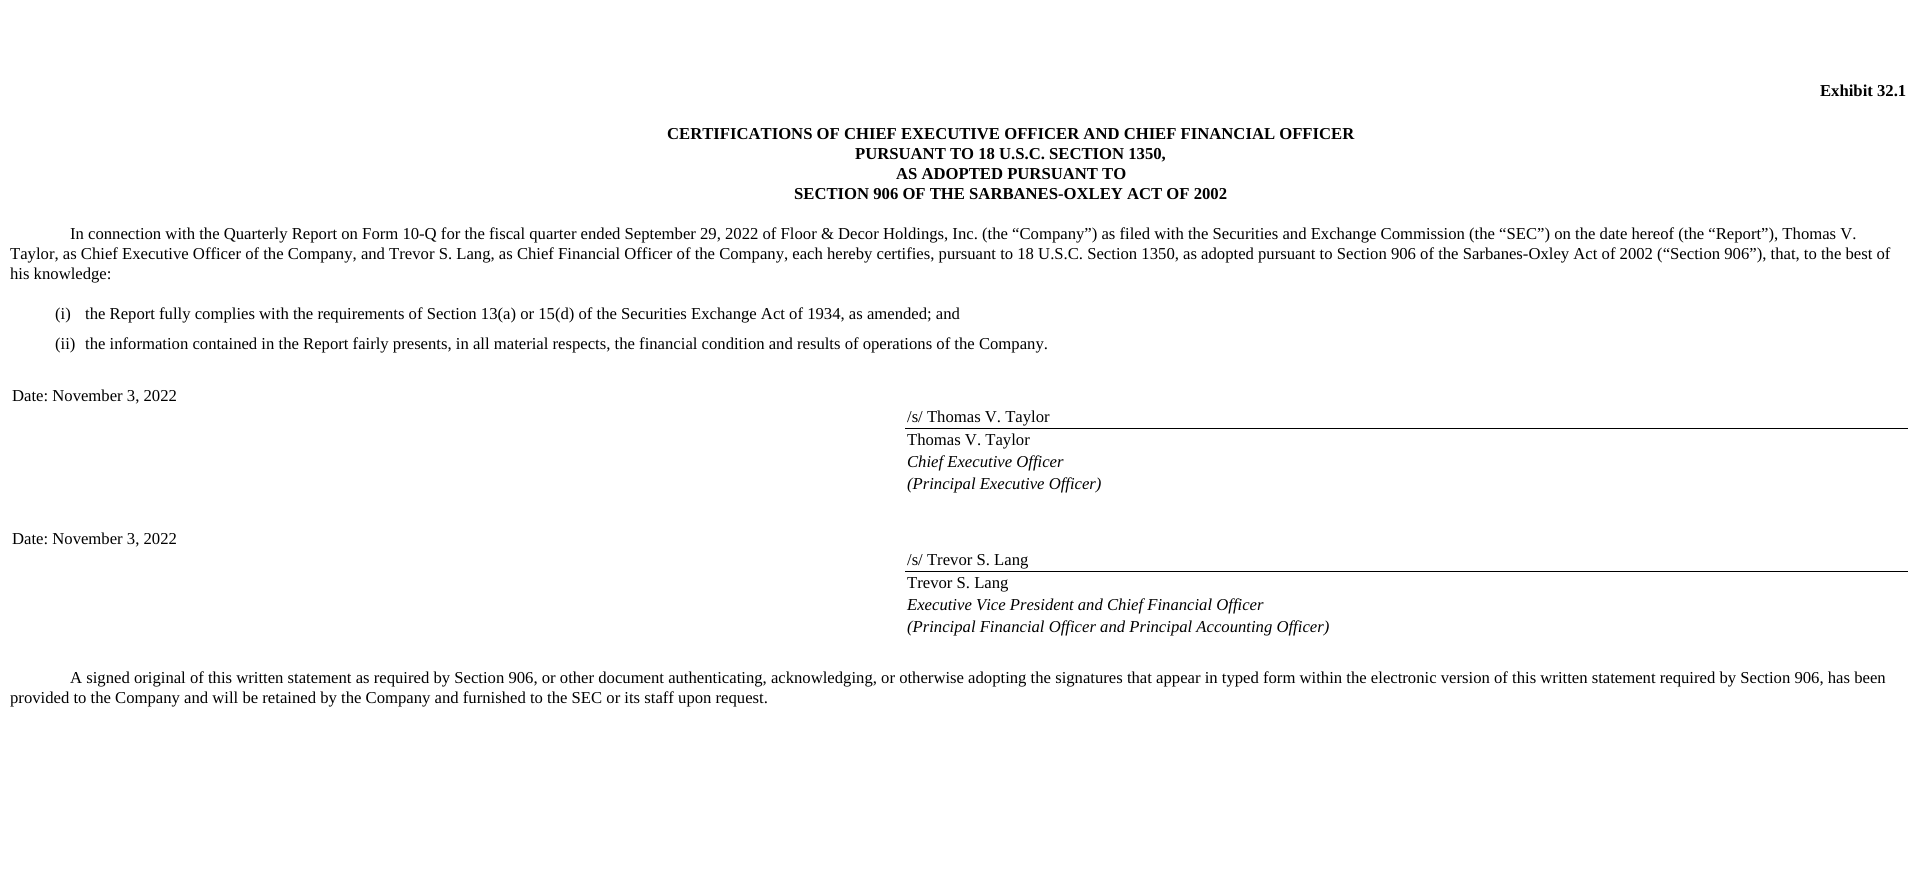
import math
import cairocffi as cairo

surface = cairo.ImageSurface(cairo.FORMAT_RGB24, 1916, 896)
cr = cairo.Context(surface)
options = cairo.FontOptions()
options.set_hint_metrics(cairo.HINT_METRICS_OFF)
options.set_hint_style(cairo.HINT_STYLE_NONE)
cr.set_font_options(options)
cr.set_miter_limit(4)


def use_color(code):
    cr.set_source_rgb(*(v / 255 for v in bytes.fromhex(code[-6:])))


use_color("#ffffff")
cr.paint()
cr.select_font_face("Liberation Serif", cairo.FONT_SLANT_NORMAL, cairo.FONT_WEIGHT_BOLD)
cr.set_font_size(16.67)
use_color("#000000")
cr.move_to(1820, 96)
cr.show_text("Exhibit 32.1")
cr.move_to(667, 139)
cr.show_text("CERTIFICATIONS OF CHIEF EXECUTIVE OFFICER AND CHIEF FINANCIAL OFFICER")
cr.move_to(855, 159)
cr.show_text("PURSUANT TO 18 U.S.C. SECTION 1350,")
cr.move_to(896, 179)
cr.show_text("AS ADOPTED PURSUANT TO")
cr.move_to(794, 199)
cr.show_text("SECTION 906 OF THE SARBANES-OXLEY ACT OF 2002")
cr.select_font_face("Liberation Serif")
cr.move_to(70, 239)
cr.show_text("In connection with the Quarterly Report on Form 10-Q for the fiscal quarter ended September 29, 2022 of Floor & Decor Holdings, Inc. (the “Company”) as filed with the Securities and Exchange Commission (the “SEC”) on the date hereof (the “Report”), Thomas V.")
cr.move_to(10, 259)
cr.show_text("Taylor, as Chief Executive Officer of the Company, and Trevor S. Lang, as Chief Financial Officer of the Company, each hereby certifies, pursuant to 18 U.S.C. Section 1350, as adopted pursuant to Section 906 of the Sarbanes-Oxley Act of 2002 (“Section 906”), that, to the best of")
cr.move_to(10, 279)
cr.show_text("his knowledge:")
cr.move_to(55, 319)
cr.show_text("(i)")
cr.move_to(85, 319)
cr.show_text("the Report fully complies with the requirements of Section 13(a) or 15(d) of the Securities Exchange Act of 1934, as amended; and")
cr.move_to(55, 349)
cr.show_text("(ii)")
cr.move_to(85, 349)
cr.show_text("the information contained in the Report fairly presents, in all material respects, the financial condition and results of operations of the Company.")
cr.move_to(12, 401)
cr.show_text("Date: November 3, 2022")
cr.move_to(907, 422)
cr.show_text("/s/ Thomas V. Taylor")
cr.rectangle(905, 428, 1003, 1)
cr.fill()
cr.move_to(907, 445)
cr.show_text("Thomas V. Taylor")
cr.select_font_face("Liberation Serif", cairo.FONT_SLANT_ITALIC)
cr.move_to(907, 467)
cr.show_text("Chief Executive Officer")
cr.move_to(907, 489)
cr.show_text("(Principal Executive Officer)")
cr.select_font_face("Liberation Serif")
cr.move_to(12, 544)
cr.show_text("Date: November 3, 2022")
cr.move_to(907, 565)
cr.show_text("/s/ Trevor S. Lang")
cr.rectangle(905, 571, 1003, 1)
cr.fill()
cr.move_to(907, 588)
cr.show_text("Trevor S. Lang")
cr.select_font_face("Liberation Serif", cairo.FONT_SLANT_ITALIC)
cr.move_to(907, 610)
cr.show_text("Executive Vice President and Chief Financial Officer")
cr.move_to(907, 632)
cr.show_text("(Principal Financial Officer and Principal Accounting Officer)")
cr.select_font_face("Liberation Serif")
cr.move_to(70, 683)
cr.show_text("A signed original of this written statement as required by Section 906, or other document authenticating, acknowledging, or otherwise adopting the signatures that appear in typed form within the electronic version of this written statement required by Section 906, has been")
cr.move_to(10, 703)
cr.show_text("provided to the Company and will be retained by the Company and furnished to the SEC or its staff upon request.")
surface.write_to_png("result.png")
